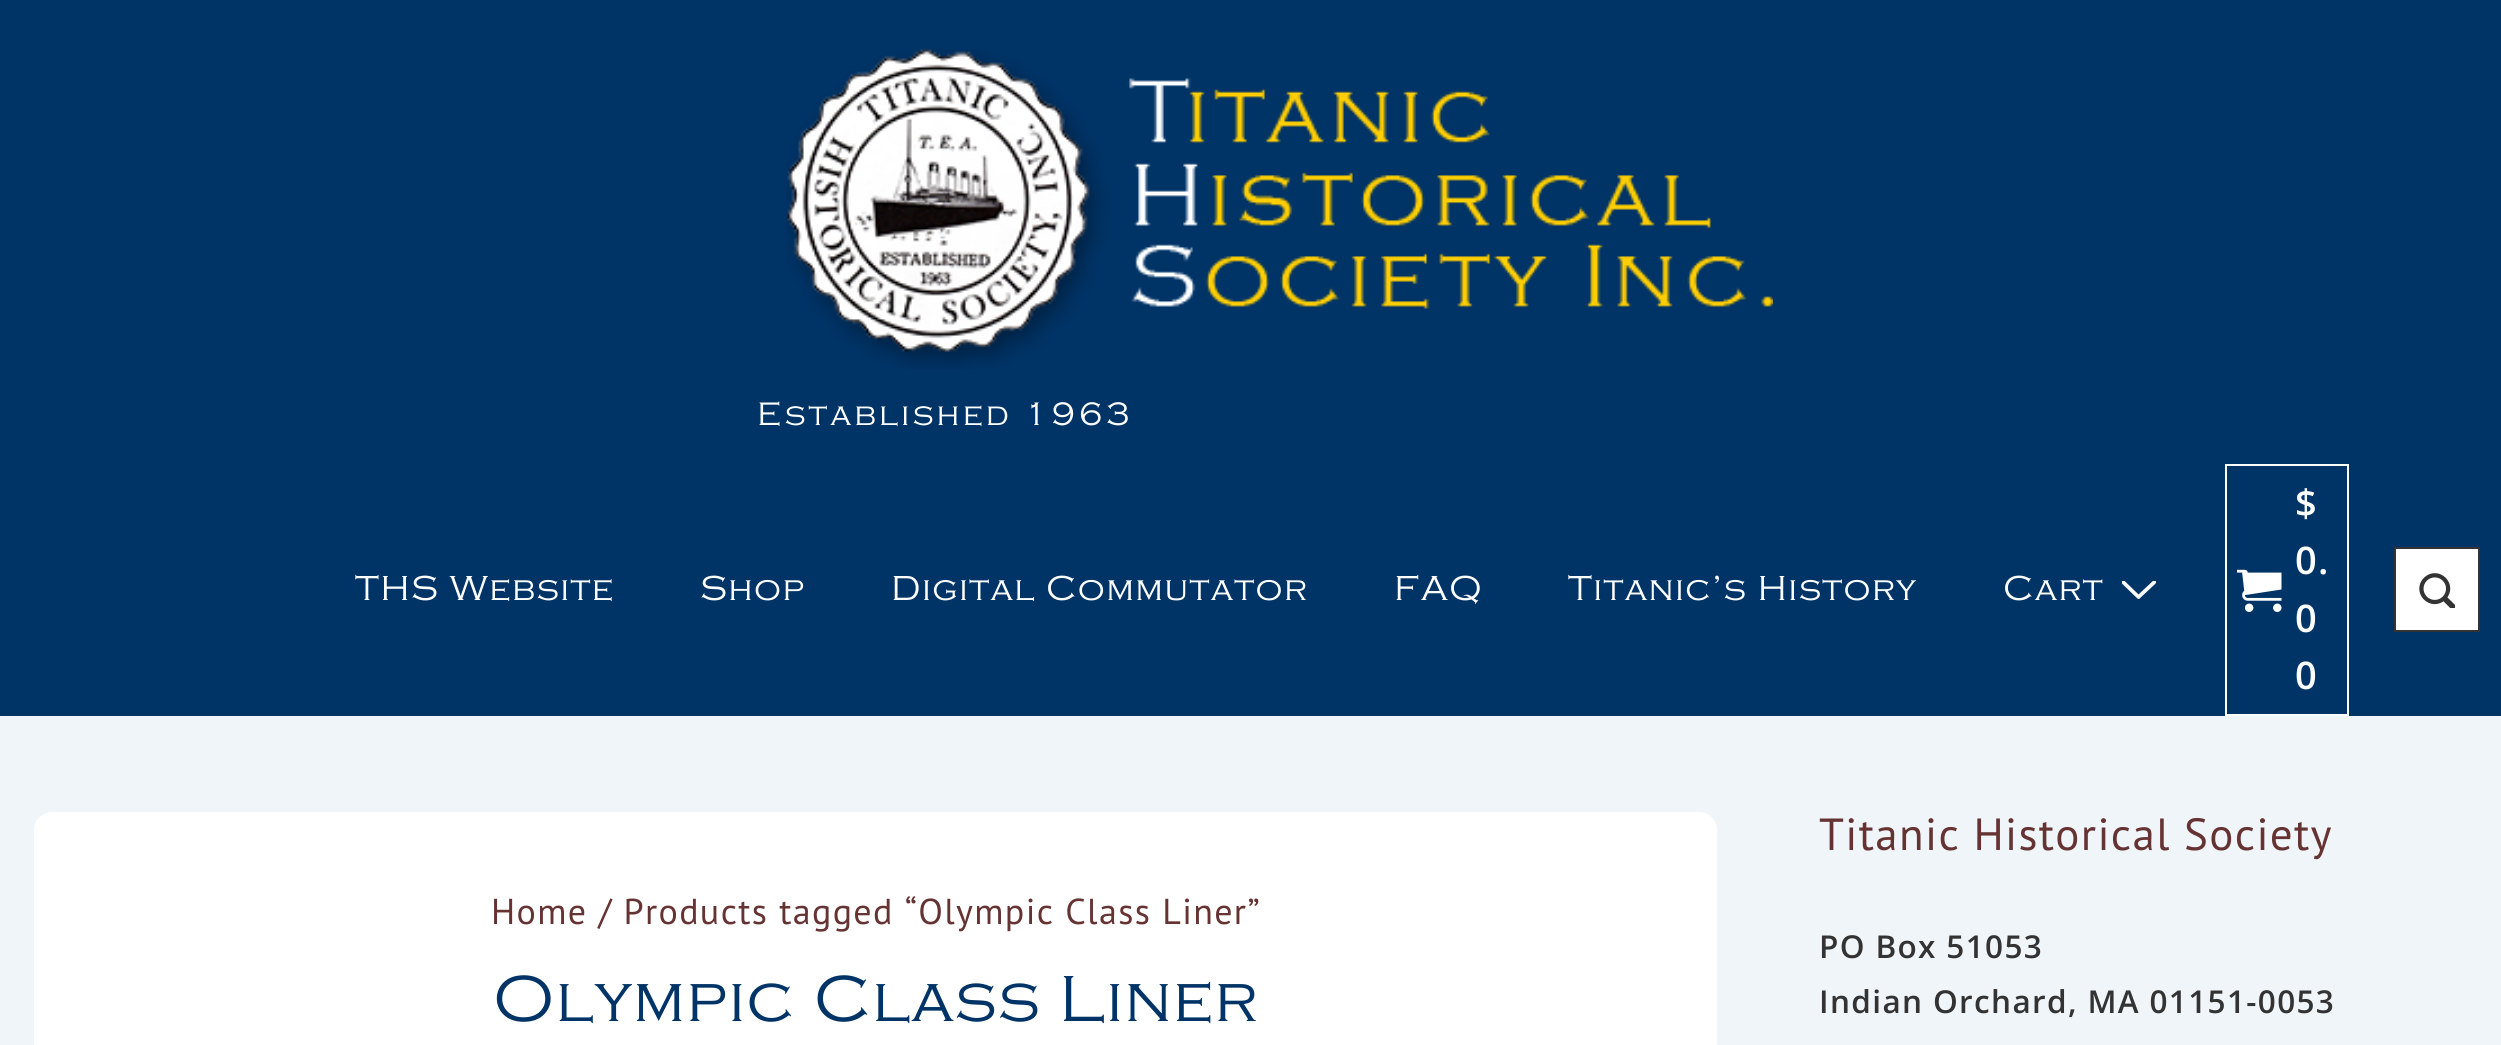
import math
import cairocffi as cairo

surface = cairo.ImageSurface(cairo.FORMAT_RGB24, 2501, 1045)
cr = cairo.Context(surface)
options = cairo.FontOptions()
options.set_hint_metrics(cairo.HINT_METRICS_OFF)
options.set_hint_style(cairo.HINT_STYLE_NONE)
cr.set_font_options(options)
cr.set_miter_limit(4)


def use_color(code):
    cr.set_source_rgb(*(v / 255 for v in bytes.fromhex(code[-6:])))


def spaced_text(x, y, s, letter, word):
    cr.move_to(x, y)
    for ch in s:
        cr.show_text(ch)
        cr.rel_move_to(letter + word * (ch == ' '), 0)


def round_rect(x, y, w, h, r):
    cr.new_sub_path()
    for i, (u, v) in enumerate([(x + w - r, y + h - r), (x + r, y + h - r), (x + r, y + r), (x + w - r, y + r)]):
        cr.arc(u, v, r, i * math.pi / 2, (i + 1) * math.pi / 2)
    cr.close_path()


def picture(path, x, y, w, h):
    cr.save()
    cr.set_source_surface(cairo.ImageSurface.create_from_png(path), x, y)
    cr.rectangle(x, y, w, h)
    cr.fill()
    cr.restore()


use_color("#f0f5fa")
cr.paint()
use_color("#003366")
cr.rectangle(0, 0, 2501, 716)
cr.fill()
picture("img1.png", 786, 49, 987, 320)
cr.select_font_face("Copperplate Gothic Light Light")
cr.set_font_size(33.75)
use_color("#ffffff")
spaced_text(757, 425, "Established 1963", 3.1, 0)
cr.set_font_size(36)
spaced_text(355, 600, "THS Website", 1.35, 0)
spaced_text(700, 600, "Shop", 1.35, 0)
spaced_text(891, 600, "Digital Commutator", 1.35, 0)
spaced_text(1394, 600, "FAQ", 1.35, 0)
spaced_text(1568, 600, "Titanic’s History", 1.35, 0)
spaced_text(2003, 600, "Cart", 1.35, 0)
cr.save()
cr.rectangle(2122, 581, 34, 18)
cr.clip()
cr.new_path()
cr.move_to(2123, 582)
cr.line_to(2138.5, 597)
cr.line_to(2154.5, 582)
cr.set_line_width(3.7)
cr.set_line_cap(cairo.LINE_CAP_ROUND)
cr.stroke()
cr.restore()
cr.rectangle(2226, 465, 122, 250)
cr.stroke()
picture("img2.png", 2237, 569, 45, 43)
cr.select_font_face("Open Sans SemiBold")
cr.set_font_size(38)
spaced_text(2295, 517, "$", 1.35, 0)
spaced_text(2295, 574, "0.", 1.35, 0)
spaced_text(2295, 632, "0", 1.35, 0)
spaced_text(2295, 689, "0", 1.35, 0)
cr.rectangle(2395, 548, 84, 83)
cr.fill_preserve()
use_color("#333333")
cr.stroke()
picture("img3.png", 2419, 573, 36, 35)
use_color("#ffffff")
round_rect(34, 812, 1683, 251, 18)
cr.fill()
cr.select_font_face("PT Sans")
cr.set_font_size(36)
use_color("#663333")
spaced_text(491, 924, "Home / Products tagged “Olympic Class Liner”", 1.35, 0)
cr.select_font_face("Copperplate Gothic Light Light")
cr.set_font_size(67.5)
use_color("#003366")
spaced_text(493, 1021, "Olympic Class Liner", 1.35, 0)
cr.select_font_face("PT Sans")
cr.set_font_size(45)
use_color("#663333")
spaced_text(1819, 850, "Titanic Historical Society", 1.35, 0)
cr.select_font_face("Open Sans SemiBold")
cr.set_font_size(31.5)
use_color("#333333")
spaced_text(1819, 958, "PO Box 51053", 1.35, 0)
spaced_text(1819, 1013, "Indian Orchard, MA 01151-0053", 1.35, 0)
surface.write_to_png("result.png")
